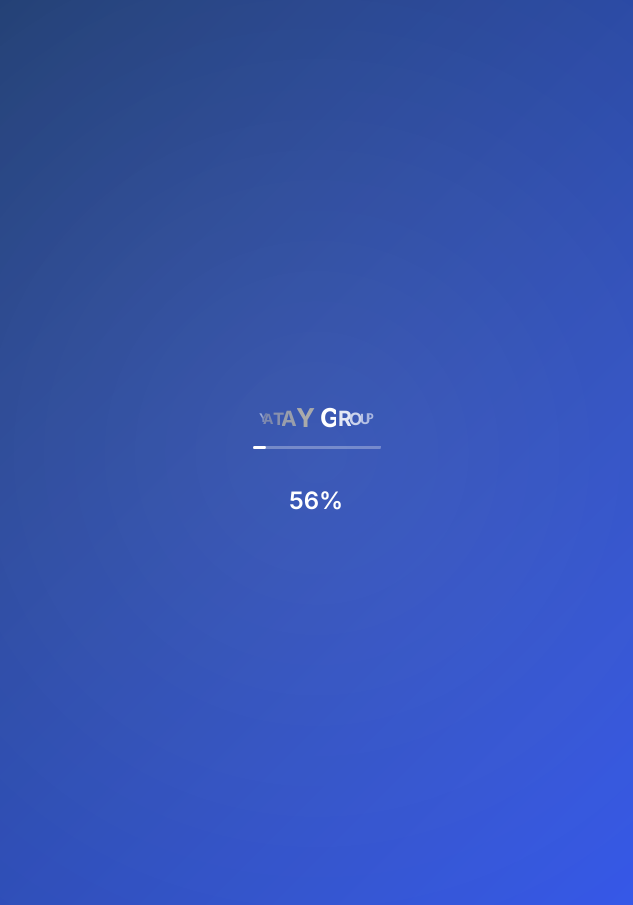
import math
import cairocffi as cairo

surface = cairo.ImageSurface(cairo.FORMAT_RGB24, 633, 905)
cr = cairo.Context(surface)
options = cairo.FontOptions()
options.set_hint_metrics(cairo.HINT_METRICS_OFF)
options.set_hint_style(cairo.HINT_STYLE_NONE)
cr.set_font_options(options)
cr.set_miter_limit(4)


def use_color(code):
    cr.set_source_rgb(*(v / 255 for v in bytes.fromhex(code[-6:])))


use_color("#ffffff")
cr.paint()
gradient = cairo.LinearGradient(-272, 272, 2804, 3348)
gradient.add_color_stop_rgba(0, 0.118, 0.235, 0.447, 1)
gradient.add_color_stop_rgba(0.25, 0.188, 0.325, 0.906, 1)
gradient.add_color_stop_rgba(0.5, 0.165, 0.322, 0.596, 1)
gradient.add_color_stop_rgba(0.75, 0.188, 0.325, 0.906, 1)
gradient.add_color_stop_rgba(1, 0.118, 0.235, 0.447, 1)
cr.set_source(gradient)
cr.rectangle(0, 0, 633, 905)
cr.fill()
gradient = cairo.RadialGradient(317, 453, 0, 317, 453, 1104)
gradient.add_color_stop_rgba(0, 1, 1, 1, 0.1)
gradient.add_color_stop_rgba(0.7, 1, 1, 1, 0)
cr.set_source(gradient)
cr.new_path()
cr.move_to(-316, -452)
cr.line_to(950, -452)
cr.line_to(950, 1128)
cr.curve_to(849, 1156, 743, 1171, 633, 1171)
cr.curve_to(243, 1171, -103, 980, -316, 687)
cr.close_path()
cr.fill()
cr.select_font_face("Inter", cairo.FONT_SLANT_NORMAL, cairo.FONT_WEIGHT_BOLD)
cr.set_font_size(12)
gradient = cairo.LinearGradient(259, 418, 346, 418)
gradient.add_color_stop_rgba(0.03, 0.612, 0.671, 0.839, 1)
gradient.add_color_stop_rgba(0.06, 0.447, 0.502, 0.675, 1)
cr.set_source(gradient)
cr.move_to(259, 422)
cr.show_text("Y")
cr.set_font_size(14)
gradient = cairo.LinearGradient(253, 418, 359, 418)
gradient.add_color_stop_rgba(0.08, 0.694, 0.737, 0.875, 1)
gradient.add_color_stop_rgba(0.11, 0.494, 0.537, 0.675, 1)
cr.set_source(gradient)
cr.move_to(263, 424)
cr.show_text("A")
cr.set_font_size(17)
gradient = cairo.LinearGradient(247, 419, 374, 419)
gradient.add_color_stop_rgba(0.13, 0.769, 0.804, 0.906, 1)
gradient.add_color_stop_rgba(0.16, 0.537, 0.569, 0.675, 1)
cr.set_source(gradient)
cr.move_to(273, 425)
cr.show_text("T")
cr.save()
cr.new_path()
cr.move_to(282.5, 402.5)
cr.line_to(298.5, 402.5)
cr.line_to(298.5, 434.5)
cr.line_to(282.5, 434.5)
cr.close_path()
cr.clip()
cr.set_font_size(21)
gradient = cairo.LinearGradient(235, 418, 393, 418)
gradient.add_color_stop_rgba(0.18, 0.886, 0.902, 0.953, 1)
gradient.add_color_stop_rgba(0.21, 0.6, 0.62, 0.671, 1)
cr.set_source(gradient)
cr.move_to(281, 426)
cr.show_text("A")
cr.restore()
cr.save()
cr.new_path()
cr.move_to(297.5, 399.5)
cr.line_to(316.5, 399.5)
cr.line_to(316.5, 437.5)
cr.line_to(297.5, 437.5)
cr.close_path()
cr.clip()
cr.set_font_size(26)
gradient = cairo.LinearGradient(222, 418, 411, 418)
gradient.add_color_stop_rgba(0.23, 1, 1, 1, 1)
gradient.add_color_stop_rgba(0.26, 0.667, 0.667, 0.667, 1)
cr.set_source(gradient)
cr.move_to(296, 427)
cr.show_text("Y")
cr.restore()
cr.save()
cr.new_path()
cr.move_to(316.5, 399.5)
cr.line_to(335.5, 399.5)
cr.line_to(335.5, 437.5)
cr.line_to(316.5, 437.5)
cr.close_path()
cr.clip()
cr.set_font_size(26)
gradient = cairo.LinearGradient(222, 418, 411, 418)
gradient.add_color_stop_rgba(0.26, 0.667, 0.667, 0.667, 1)
gradient.add_color_stop_rgba(0.29, 1, 1, 1, 1)
cr.set_source(gradient)
cr.move_to(320, 427)
cr.show_text("G")
cr.restore()
cr.save()
cr.new_path()
cr.move_to(334.5, 402.5)
cr.line_to(350.5, 402.5)
cr.line_to(350.5, 434.5)
cr.line_to(334.5, 434.5)
cr.close_path()
cr.clip()
cr.set_font_size(21)
gradient = cairo.LinearGradient(240, 418, 398, 418)
gradient.add_color_stop_rgba(0.31, 0.612, 0.627, 0.675, 1)
gradient.add_color_stop_rgba(0.34, 0.894, 0.91, 0.961, 1)
cr.set_source(gradient)
cr.move_to(338, 426)
cr.show_text("R")
cr.restore()
cr.save()
cr.new_path()
cr.move_to(348, 405.5)
cr.line_to(360.5, 405.5)
cr.line_to(360.5, 431.5)
cr.line_to(348, 431.5)
cr.close_path()
cr.clip()
gradient = cairo.LinearGradient(259, 419, 386, 419)
gradient.add_color_stop_rgba(0.36, 0.561, 0.592, 0.69, 1)
gradient.add_color_stop_rgba(0.39, 0.796, 0.827, 0.922, 1)
cr.set_source(gradient)
cr.move_to(349, 425)
cr.show_text("O")
cr.restore()
cr.save()
cr.new_path()
cr.move_to(359, 408)
cr.line_to(369.5, 408)
cr.line_to(369.5, 429)
cr.line_to(359, 429)
cr.close_path()
cr.clip()
cr.set_font_size(14)
gradient = cairo.LinearGradient(274, 418, 380, 418)
gradient.add_color_stop_rgba(0.41, 0.518, 0.561, 0.694, 1)
gradient.add_color_stop_rgba(0.44, 0.718, 0.761, 0.894, 1)
cr.set_source(gradient)
cr.move_to(360, 424)
cr.show_text("U")
cr.restore()
cr.set_font_size(12)
gradient = cairo.LinearGradient(287, 418, 374, 418)
gradient.add_color_stop_rgba(0.46, 0.494, 0.545, 0.706, 1)
gradient.add_color_stop_rgba(0.49, 0.663, 0.714, 0.875, 1)
cr.set_source(gradient)
cr.move_to(366, 422)
cr.show_text("P")
cr.set_source_rgba(1, 1, 1, 0.3)
cr.new_path()
cr.move_to(254, 446)
cr.line_to(380, 446)
cr.line_to(381, 446)
cr.curve_to(381, 447, 381, 449, 380, 449)
cr.line_to(254, 449)
cr.curve_to(253, 449, 253, 446, 254, 446)
cr.close_path()
cr.fill()
use_color("#ffffff")
cr.new_path()
cr.move_to(254.5, 446)
cr.line_to(265, 446)
cr.curve_to(266.5, 446.5, 266, 449, 264.5, 449)
cr.line_to(254, 449)
cr.curve_to(252.5, 448.5, 253, 446, 254.5, 446)
cr.close_path()
cr.fill()
cr.select_font_face("Inter SemiBold")
cr.set_font_size(24)
cr.move_to(289, 509)
cr.show_text("56%")
surface.write_to_png("result.png")
